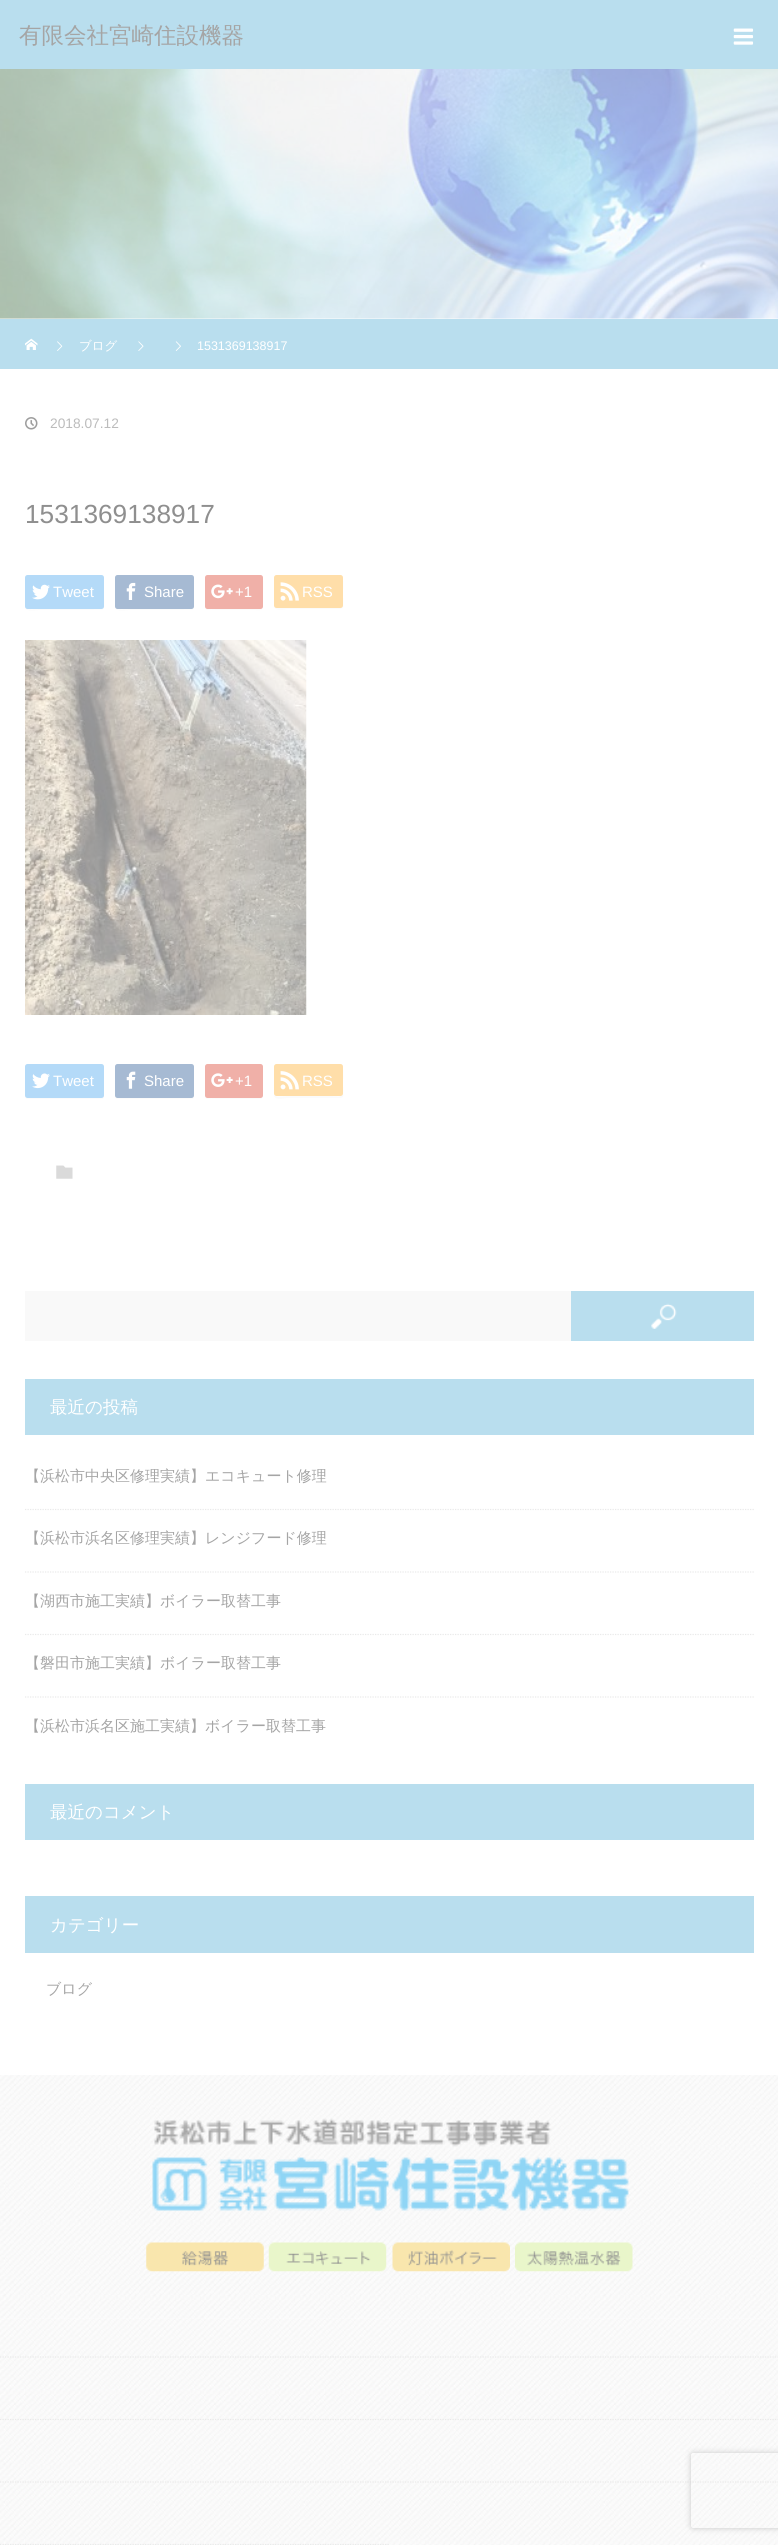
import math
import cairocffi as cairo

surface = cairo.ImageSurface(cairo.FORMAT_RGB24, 778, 2545)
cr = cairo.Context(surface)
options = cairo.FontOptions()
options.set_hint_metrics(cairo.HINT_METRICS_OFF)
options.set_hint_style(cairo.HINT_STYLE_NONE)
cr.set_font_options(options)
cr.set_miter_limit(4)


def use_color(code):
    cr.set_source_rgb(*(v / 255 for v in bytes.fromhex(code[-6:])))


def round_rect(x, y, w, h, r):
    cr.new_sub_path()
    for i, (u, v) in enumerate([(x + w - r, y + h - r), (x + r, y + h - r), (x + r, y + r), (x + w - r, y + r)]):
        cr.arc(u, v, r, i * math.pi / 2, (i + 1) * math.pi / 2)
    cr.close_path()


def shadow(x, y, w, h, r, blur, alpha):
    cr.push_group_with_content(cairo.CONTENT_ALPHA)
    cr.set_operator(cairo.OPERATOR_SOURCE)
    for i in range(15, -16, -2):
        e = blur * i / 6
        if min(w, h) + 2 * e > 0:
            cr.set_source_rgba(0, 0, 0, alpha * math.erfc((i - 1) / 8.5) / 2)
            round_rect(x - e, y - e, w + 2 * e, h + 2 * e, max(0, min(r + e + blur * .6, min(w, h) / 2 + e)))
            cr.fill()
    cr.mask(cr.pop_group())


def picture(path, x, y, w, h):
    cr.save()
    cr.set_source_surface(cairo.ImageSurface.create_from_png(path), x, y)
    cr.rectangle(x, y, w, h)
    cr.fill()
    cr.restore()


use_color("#ffffff")
cr.paint()
use_color("#b9deee")
cr.rectangle(0, 0, 778, 69)
cr.fill()
cr.select_font_face("WenQuanYi Zen Hei Medium")
cr.set_font_size(22.5)
use_color("#a5a5a5")
cr.move_to(19, 43)
cr.show_text("有限会社宮崎住設機器")
picture("img1.png", 733, 28, 21, 17)
picture("img2.png", 0, 69, 778, 250)
use_color("#b9deee")
cr.rectangle(0, 319, 778, 50)
cr.fill()
picture("img3.png", 25, 338, 13, 12)
picture("img4.png", 57, 341, 6, 10)
cr.set_font_size(12.5)
use_color("#ffffff")
cr.move_to(79, 350)
cr.show_text("ブログ")
picture("img5.png", 138, 341, 6, 10)
picture("img6.png", 175, 341, 6, 10)
cr.select_font_face("Liberation Sans")
cr.move_to(197, 350)
cr.show_text("1531369138917")
picture("img7.png", 25, 417, 13, 13)
cr.set_font_size(13.75)
use_color("#bcbcbc")
cr.move_to(50, 428)
cr.show_text("2018.07.12")
cr.set_font_size(26.25)
use_color("#8f8f8f")
cr.move_to(25, 523)
cr.show_text("1531369138917")
use_color("#fbfbfb")
cr.new_path()
cr.move_to(25, 606)
cr.curve_to(25, 613, 35, 610, 40, 610)
cr.line_to(89, 610)
cr.curve_to(108, 610, 104, 612, 104, 593)
cr.line_to(104, 577)
cr.line_to(104, 601)
cr.curve_to(104, 612, 102, 609, 89, 609)
cr.line_to(40, 609)
cr.curve_to(35, 609, 25, 611, 25, 606)
cr.close_path()
cr.fill()
use_color("#b4daf8")
round_rect(25, 575, 79, 34, 2.5)
cr.fill()
picture("img8.png", 32, 584, 18, 16)
cr.set_font_size(15)
use_color("#ffffff")
cr.move_to(53, 597)
cr.show_text("Tweet")
use_color("#fbfbfb")
cr.new_path()
cr.move_to(115, 606)
cr.curve_to(115, 613, 125, 610, 130, 610)
cr.line_to(179, 610)
cr.curve_to(198, 610, 194, 612, 194, 593)
cr.line_to(194, 577)
cr.line_to(194, 601)
cr.curve_to(194, 612, 192, 609, 179, 609)
cr.line_to(130, 609)
cr.curve_to(125, 609, 115, 611, 115, 606)
cr.close_path()
cr.fill()
use_color("#a6bad3")
round_rect(115, 575, 79, 34, 2.5)
cr.fill()
picture("img9.png", 126, 582, 10, 18)
use_color("#ffffff")
cr.move_to(144, 597)
cr.show_text("Share")
use_color("#fbfbfb")
cr.new_path()
cr.move_to(205, 606)
cr.curve_to(205, 608, 205, 610, 208, 610)
cr.line_to(252, 610)
cr.curve_to(262, 610, 263, 612, 263, 603)
cr.line_to(263, 593)
cr.curve_to(263, 590, 264, 579, 262, 577)
cr.line_to(262, 597)
cr.curve_to(262, 610, 265, 609, 251, 609)
cr.line_to(216, 609)
cr.curve_to(216, 609, 205, 611, 205, 606)
cr.close_path()
cr.fill()
use_color("#f0b0a8")
round_rect(205, 575, 58, 34, 2.5)
cr.fill()
picture("img10.png", 211, 584, 22, 15)
use_color("#ffffff")
cr.move_to(235, 597)
cr.show_text("+1")
use_color("#fbfbfb")
cr.new_path()
cr.move_to(274, 606)
cr.curve_to(274, 612, 286, 609, 287, 609)
cr.line_to(330, 609)
cr.curve_to(347, 609, 343, 611, 343, 592)
cr.curve_to(343, 590, 344, 579, 342, 577)
cr.curve_to(343, 580, 343, 606, 342, 607)
cr.line_to(340, 608)
cr.line_to(276, 607)
cr.close_path()
cr.fill()
use_color("#ffdea9")
round_rect(274, 575, 69, 33, 2.5)
cr.fill()
picture("img11.png", 280, 582, 19, 19)
use_color("#ffffff")
cr.move_to(302, 597)
cr.show_text("RSS")
picture("img12.png", 25, 640, 282, 375)
use_color("#fbfbfb")
cr.new_path()
cr.move_to(25, 1095)
cr.curve_to(25, 1097, 25, 1099, 28, 1099)
cr.line_to(102, 1099)
cr.curve_to(105, 1099, 104, 1093, 104, 1092)
cr.line_to(104, 1066)
cr.line_to(104, 1095)
cr.curve_to(104, 1096, 103, 1098, 101, 1098)
cr.line_to(28, 1098)
cr.curve_to(26, 1098, 25, 1096, 25, 1095)
cr.close_path()
cr.fill()
use_color("#b4daf8")
round_rect(25, 1064, 79, 34, 2.5)
cr.fill()
picture("img13.png", 32, 1073, 18, 16)
use_color("#ffffff")
cr.move_to(53, 1086)
cr.show_text("Tweet")
use_color("#fbfbfb")
cr.new_path()
cr.move_to(115, 1095)
cr.curve_to(115, 1097, 115, 1099, 118, 1099)
cr.line_to(192, 1099)
cr.curve_to(195, 1099, 194, 1093, 194, 1092)
cr.line_to(194, 1066)
cr.line_to(194, 1095)
cr.curve_to(194, 1096, 193, 1098, 191, 1098)
cr.line_to(118, 1098)
cr.curve_to(116, 1098, 115, 1096, 115, 1095)
cr.close_path()
cr.fill()
use_color("#a6bad3")
round_rect(115, 1064, 79, 34, 2.5)
cr.fill()
picture("img14.png", 126, 1071, 10, 18)
use_color("#ffffff")
cr.move_to(144, 1086)
cr.show_text("Share")
use_color("#fbfbfb")
cr.new_path()
cr.move_to(205, 1095)
cr.line_to(205, 1096)
cr.curve_to(205, 1098, 206, 1099, 208, 1099)
cr.line_to(260, 1099)
cr.curve_to(262, 1099, 263, 1098, 263, 1096)
cr.line_to(263, 1068)
cr.line_to(262, 1066)
cr.line_to(262, 1085)
cr.curve_to(262, 1099, 265, 1098, 251, 1098)
cr.line_to(216, 1098)
cr.curve_to(216, 1098, 205, 1100, 205, 1095)
cr.close_path()
cr.fill()
use_color("#f0b0a8")
round_rect(205, 1064, 58, 34, 2.5)
cr.fill()
picture("img15.png", 211, 1073, 22, 14)
use_color("#ffffff")
cr.move_to(235, 1086)
cr.show_text("+1")
use_color("#fbfbfb")
cr.new_path()
cr.move_to(274, 1095)
cr.curve_to(274, 1101, 285, 1098, 287, 1098)
cr.line_to(330, 1098)
cr.curve_to(347, 1098, 343, 1100, 343, 1082)
cr.curve_to(343, 1079, 344, 1068, 342, 1066)
cr.line_to(342, 1089)
cr.curve_to(342, 1099, 341, 1096, 329, 1096)
cr.line_to(287, 1096)
cr.curve_to(285, 1096, 276, 1098, 274, 1095)
cr.close_path()
cr.fill()
use_color("#ffdea9")
round_rect(274, 1064, 69, 32, 2.5)
cr.fill()
picture("img16.png", 280, 1071, 19, 19)
use_color("#ffffff")
cr.move_to(302, 1086)
cr.show_text("RSS")
picture("img17.png", 56, 1165, 17, 14)
use_color("#f9f9f9")
cr.rectangle(25, 1291, 546, 50)
cr.fill()
use_color("#b9deee")
cr.rectangle(571, 1291, 183, 50)
cr.fill()
picture("img18.png", 651, 1303, 26, 26)
cr.rectangle(25, 1379, 729, 56)
cr.fill()
cr.select_font_face("WenQuanYi Zen Hei Medium")
cr.set_font_size(17.5)
use_color("#ffffff")
cr.move_to(50, 1413)
cr.show_text("最近の投稿")
cr.new_path()
cr.move_to(25, 1509.5)
cr.line_to(754, 1509.5)
use_color("#e9e9e9")
cr.set_line_width(1.2)
cr.set_dash([1.25, 1.25])
cr.stroke()
cr.set_font_size(15)
use_color("#a5a5a5")
cr.move_to(25, 1481)
cr.show_text("【浜松市中央区修理実績】エコキュート修理")
cr.new_path()
cr.move_to(25, 1572)
cr.line_to(754, 1572)
use_color("#e9e9e9")
cr.stroke()
use_color("#a5a5a5")
cr.move_to(25, 1543)
cr.show_text("【浜松市浜名区修理実績】レンジフード修理")
cr.new_path()
cr.move_to(25, 1634.5)
cr.line_to(754, 1634.5)
use_color("#e9e9e9")
cr.stroke()
use_color("#a5a5a5")
cr.move_to(25, 1606)
cr.show_text("【湖西市施工実績】ボイラー取替工事")
cr.new_path()
cr.move_to(25, 1697)
cr.line_to(754, 1697)
use_color("#e9e9e9")
cr.stroke()
use_color("#a5a5a5")
cr.move_to(25, 1668)
cr.show_text("【磐田市施工実績】ボイラー取替工事")
cr.move_to(25, 1731)
cr.show_text("【浜松市浜名区施工実績】ボイラー取替工事")
use_color("#b9deee")
cr.rectangle(25, 1784, 729, 56)
cr.fill()
cr.set_font_size(17.5)
use_color("#ffffff")
cr.move_to(50, 1818)
cr.show_text("最近のコメント")
use_color("#b9deee")
cr.rectangle(25, 1896, 729, 57)
cr.fill()
use_color("#ffffff")
cr.move_to(50, 1931)
cr.show_text("カテゴリー")
cr.set_font_size(15)
use_color("#a5a5a5")
cr.move_to(46, 1994)
cr.show_text("ブログ")
picture("img19.png", 0, 2075, 778, 244)
picture("img20.png", 152, 2118, 477, 93)
picture("img21.png", 146, 2242, 118, 30)
picture("img22.png", 268, 2242, 119, 30)
picture("img23.png", 392, 2242, 118, 30)
picture("img24.png", 515, 2242, 118, 30)
picture("img25.png", 0, 2319, 778, 226)
cr.new_path()
cr.move_to(0, 2357)
cr.line_to(390, 2357)
use_color("#e9e9e9")
cr.stroke()
cr.new_path()
cr.move_to(390, 2357)
cr.line_to(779, 2357)
cr.stroke()
cr.new_path()
cr.move_to(0, 2419.5)
cr.line_to(390, 2419.5)
cr.stroke()
cr.new_path()
cr.move_to(390, 2419.5)
cr.line_to(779, 2419.5)
cr.stroke()
cr.new_path()
cr.move_to(0, 2482)
cr.line_to(390, 2482)
cr.stroke()
cr.new_path()
cr.move_to(390, 2482)
cr.line_to(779, 2482)
cr.stroke()
cr.new_path()
cr.move_to(0, 2544.5)
cr.line_to(390, 2544.5)
cr.stroke()
cr.save()
cr.set_fill_rule(cairo.FILL_RULE_EVEN_ODD)
cr.new_path()
cr.move_to(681, 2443)
cr.line_to(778, 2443)
cr.line_to(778, 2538)
cr.line_to(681, 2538)
cr.close_path()
cr.move_to(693.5, 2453)
cr.line_to(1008.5, 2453)
cr.curve_to(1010, 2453, 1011, 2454, 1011, 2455.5)
cr.line_to(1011, 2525.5)
cr.curve_to(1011, 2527, 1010, 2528, 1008.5, 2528)
cr.line_to(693.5, 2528)
cr.curve_to(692, 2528, 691, 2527, 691, 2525.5)
cr.line_to(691, 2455.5)
cr.curve_to(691, 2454, 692, 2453, 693.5, 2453)
cr.close_path()
cr.clip()
use_color("#c7c7c7")
shadow(691, 2453, 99, 75, 2.5, 3, 1)
cr.restore()
surface.write_to_png("result.png")
